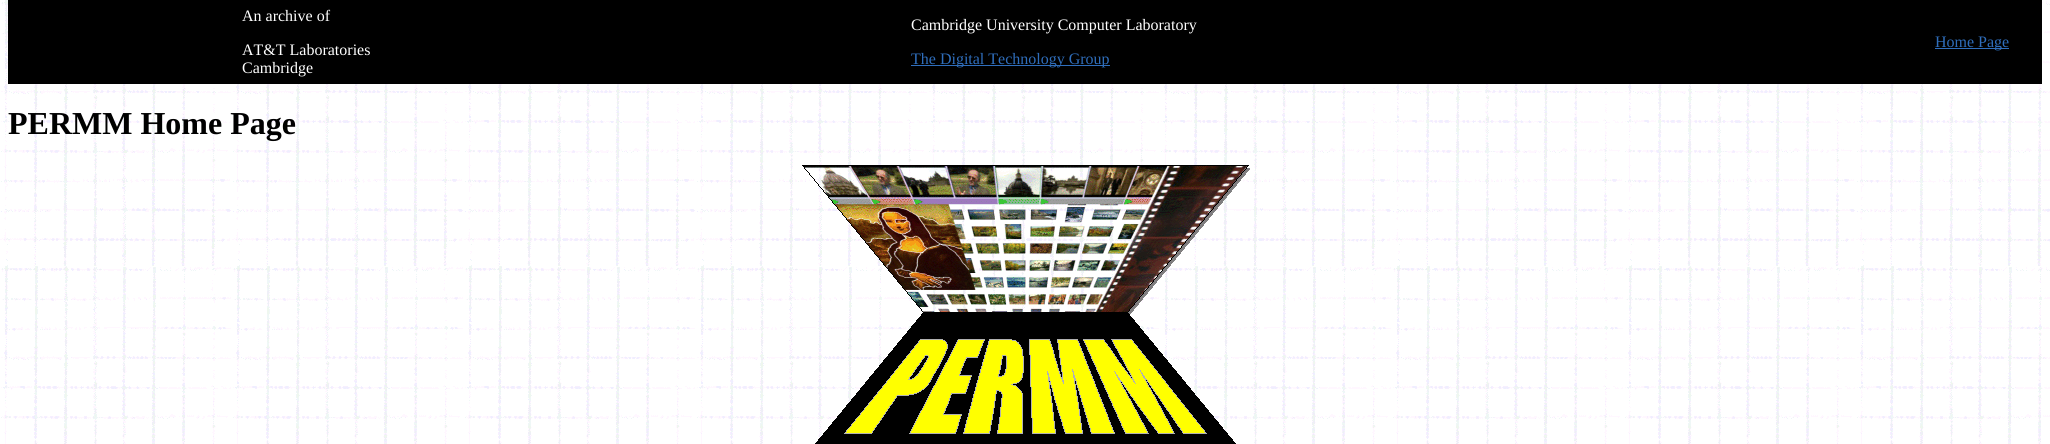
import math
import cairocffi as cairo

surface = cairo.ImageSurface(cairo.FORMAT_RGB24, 2050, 444)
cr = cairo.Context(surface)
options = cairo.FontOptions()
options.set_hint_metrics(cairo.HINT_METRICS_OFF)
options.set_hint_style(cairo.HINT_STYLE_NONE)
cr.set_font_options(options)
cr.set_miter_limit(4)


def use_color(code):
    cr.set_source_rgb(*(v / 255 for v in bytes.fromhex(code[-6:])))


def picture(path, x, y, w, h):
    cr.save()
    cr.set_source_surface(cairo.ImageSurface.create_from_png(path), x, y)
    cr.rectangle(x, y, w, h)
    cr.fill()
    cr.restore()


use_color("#ffffff")
cr.paint()
picture("img1.png", 0, 0, 2050, 444)
use_color("#000000")
cr.rectangle(8, 0, 2034, 84)
cr.fill()
cr.select_font_face("Liberation Serif")
cr.set_font_size(16)
use_color("#ffffff")
cr.move_to(242, 21)
cr.show_text("An archive of")
cr.move_to(242, 55)
cr.show_text("AT&T Laboratories")
cr.move_to(242, 73)
cr.show_text("Cambridge")
cr.move_to(911, 30)
cr.show_text("Cambridge University Computer Laboratory")
use_color("#2f6ebc")
cr.rectangle(911, 65, 199, 1)
cr.fill()
cr.move_to(911, 64)
cr.show_text("The Digital Technology Group")
cr.rectangle(1935, 48, 74, 1)
cr.fill()
cr.move_to(1935, 47)
cr.show_text("Home Page")
cr.select_font_face("Liberation Serif", cairo.FONT_SLANT_NORMAL, cairo.FONT_WEIGHT_BOLD)
cr.set_font_size(32)
use_color("#000000")
cr.move_to(8, 134)
cr.show_text("PERMM Home Page")
picture("img2.png", 802, 165, 448, 279)
surface.write_to_png("result.png")
